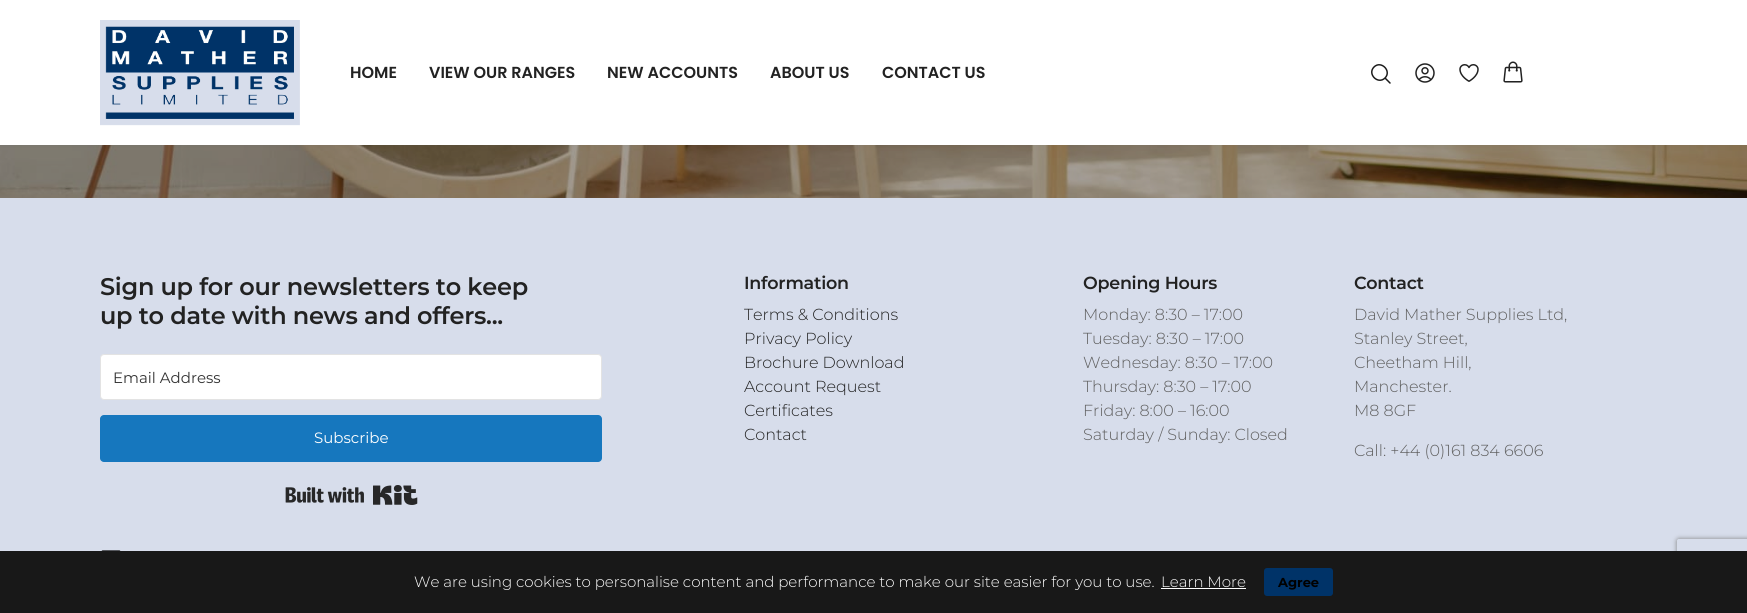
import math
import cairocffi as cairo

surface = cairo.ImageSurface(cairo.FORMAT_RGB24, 1747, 613)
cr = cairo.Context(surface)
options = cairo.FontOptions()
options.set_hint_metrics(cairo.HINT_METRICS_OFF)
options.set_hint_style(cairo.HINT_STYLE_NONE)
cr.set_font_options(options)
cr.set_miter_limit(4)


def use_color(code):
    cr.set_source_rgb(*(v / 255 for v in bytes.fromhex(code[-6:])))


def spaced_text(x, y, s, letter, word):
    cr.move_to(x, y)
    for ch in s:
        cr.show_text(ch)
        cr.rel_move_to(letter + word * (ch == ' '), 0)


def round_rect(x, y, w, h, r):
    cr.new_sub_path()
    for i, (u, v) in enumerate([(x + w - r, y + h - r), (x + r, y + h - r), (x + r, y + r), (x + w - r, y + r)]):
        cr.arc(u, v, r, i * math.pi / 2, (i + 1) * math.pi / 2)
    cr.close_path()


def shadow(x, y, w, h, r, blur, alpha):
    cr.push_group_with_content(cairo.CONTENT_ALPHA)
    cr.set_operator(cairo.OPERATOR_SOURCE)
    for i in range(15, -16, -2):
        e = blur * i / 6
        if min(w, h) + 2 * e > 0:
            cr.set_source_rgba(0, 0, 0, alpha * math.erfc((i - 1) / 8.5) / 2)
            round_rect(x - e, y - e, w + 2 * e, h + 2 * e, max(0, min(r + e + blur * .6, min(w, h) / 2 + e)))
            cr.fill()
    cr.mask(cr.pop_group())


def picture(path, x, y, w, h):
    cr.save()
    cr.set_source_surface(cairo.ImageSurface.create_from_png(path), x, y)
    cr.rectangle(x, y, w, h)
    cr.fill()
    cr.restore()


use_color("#ffffff")
cr.paint()
picture("img5.png", 0, 145, 1747, 53)
use_color("#3e4045")
shadow(0, 0, 1747, 145, 0, 2.5, 0.1)
use_color("#ffffff")
cr.rectangle(0, 0, 1747, 145)
cr.fill()
picture("img1.png", 100, 20, 200, 106)
cr.select_font_face("Poppins SemiBold")
cr.set_font_size(16)
use_color("#222222")
cr.move_to(350, 78)
cr.show_text("HOME")
cr.move_to(429, 78)
cr.show_text("VIEW OUR RANGES")
cr.move_to(607, 78)
cr.show_text("NEW ACCOUNTS")
cr.move_to(770, 78)
cr.show_text("ABOUT US")
cr.move_to(882, 78)
cr.show_text("CONTACT US")
cr.new_path()
cr.move_to(1390, 83)
cr.line_to(1385, 78)
cr.move_to(1385, 78)
cr.curve_to(1392, 71, 1381, 60, 1374, 67)
cr.curve_to(1367, 74, 1378, 85, 1385, 78)
cr.close_path()
use_color("#1b1b1b")
cr.set_line_width(1.5)
cr.set_line_cap(cairo.LINE_CAP_ROUND)
cr.set_line_join(cairo.LINE_JOIN_ROUND)
cr.stroke()
picture("img2.png", 1415, 63, 20, 20)
picture("img3.png", 1459, 64, 20, 18)
picture("img4.png", 1503, 61, 20, 22)
use_color("#d7ddeb")
cr.rectangle(0, 198, 1747, 353)
cr.fill()
cr.select_font_face("Montserrat SemiBold")
cr.set_font_size(24)
use_color("#222222")
spaced_text(100, 295, "Sign up for our newsletters to keep", -0.25, 0)
spaced_text(100, 324, "up to date with news and offers...", -0.25, 0)
use_color("#ffffff")
round_rect(100.5, 354.5, 501, 45, 3.5)
cr.fill_preserve()
use_color("#e3e3e3")
cr.set_line_width(1)
cr.set_line_cap(cairo.LINE_CAP_BUTT)
cr.set_line_join(cairo.LINE_JOIN_MITER)
cr.stroke()
cr.select_font_face("Montserrat")
cr.set_font_size(15)
use_color("#333333")
cr.move_to(113, 383)
cr.show_text("Email Address")
use_color("#1677be")
round_rect(100, 415, 502, 47, 4)
cr.fill()
use_color("#ffffff")
cr.move_to(314, 443)
cr.show_text("Subscribe")
picture("img6.png", 285, 485, 133, 20)
picture("img7.png", 101, 550, 20, 1)
cr.select_font_face("Montserrat SemiBold")
cr.set_font_size(17.5)
use_color("#222222")
spaced_text(744, 289, "Information", -0.25, 0)
cr.select_font_face("Montserrat Light")
cr.set_font_size(16)
cr.move_to(744, 320)
cr.show_text("Terms & Conditions")
cr.move_to(744, 344)
cr.show_text("Privacy Policy")
cr.move_to(744, 368)
cr.show_text("Brochure Download")
cr.move_to(744, 392)
cr.show_text("Account Request")
cr.move_to(744, 416)
cr.show_text("Certificates")
cr.move_to(744, 440)
cr.show_text("Contact")
cr.select_font_face("Montserrat SemiBold")
cr.set_font_size(17.5)
spaced_text(1083, 289, "Opening Hours", -0.25, 0)
cr.select_font_face("Montserrat Light")
cr.set_font_size(16)
use_color("#5f5f5f")
cr.move_to(1083, 320)
cr.show_text("Monday: 8:30 – 17:00")
cr.move_to(1083, 344)
cr.show_text("Tuesday: 8:30 – 17:00")
cr.move_to(1083, 368)
cr.show_text("Wednesday: 8:30 – 17:00")
cr.move_to(1083, 392)
cr.show_text("Thursday: 8:30 – 17:00")
cr.move_to(1083, 416)
cr.show_text("Friday: 8:00 – 16:00")
cr.move_to(1083, 440)
cr.show_text("Saturday / Sunday: Closed")
cr.select_font_face("Montserrat SemiBold")
cr.set_font_size(17.5)
use_color("#222222")
spaced_text(1354, 289, "Contact", -0.25, 0)
cr.select_font_face("Montserrat Light")
cr.set_font_size(16)
use_color("#5f5f5f")
cr.move_to(1354, 320)
cr.show_text("David Mather Supplies Ltd,")
cr.move_to(1354, 344)
cr.show_text("Stanley Street,")
cr.move_to(1354, 368)
cr.show_text("Cheetham Hill,")
cr.move_to(1354, 392)
cr.show_text("Manchester.")
cr.move_to(1354, 416)
cr.show_text("M8 8GF")
cr.move_to(1354, 456)
cr.show_text("Call: +44 (0)161 834 6606")
cr.save()
cr.set_fill_rule(cairo.FILL_RULE_EVEN_ODD)
cr.new_path()
cr.move_to(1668, 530)
cr.line_to(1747, 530)
cr.line_to(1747, 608)
cr.line_to(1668, 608)
cr.close_path()
cr.move_to(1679, 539)
cr.line_to(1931, 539)
cr.curve_to(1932, 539, 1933, 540, 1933, 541)
cr.line_to(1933, 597)
cr.curve_to(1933, 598, 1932, 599, 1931, 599)
cr.line_to(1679, 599)
cr.curve_to(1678, 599, 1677, 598, 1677, 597)
cr.line_to(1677, 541)
cr.curve_to(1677, 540, 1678, 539, 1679, 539)
cr.close_path()
cr.clip()
use_color("#808080")
shadow(1677, 539, 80, 60, 2, 2.5, 1)
cr.restore()
use_color("#181818")
cr.rectangle(0, 551, 1747, 62)
cr.fill()
cr.set_font_size(15)
use_color("#ffffff")
cr.move_to(414, 587)
cr.show_text("We are using cookies to personalise content and performance to make our site easier for you to use.")
cr.move_to(1161, 587)
cr.show_text("Learn More")
cr.rectangle(1161, 588, 85, 1)
cr.fill()
use_color("#003368")
round_rect(1264, 568, 69, 28, 3)
cr.fill()
cr.select_font_face("Montserrat", cairo.FONT_SLANT_NORMAL, cairo.FONT_WEIGHT_BOLD)
cr.set_font_size(13)
use_color("#000000")
cr.move_to(1278, 587)
cr.show_text("Agree")
surface.write_to_png("result.png")
